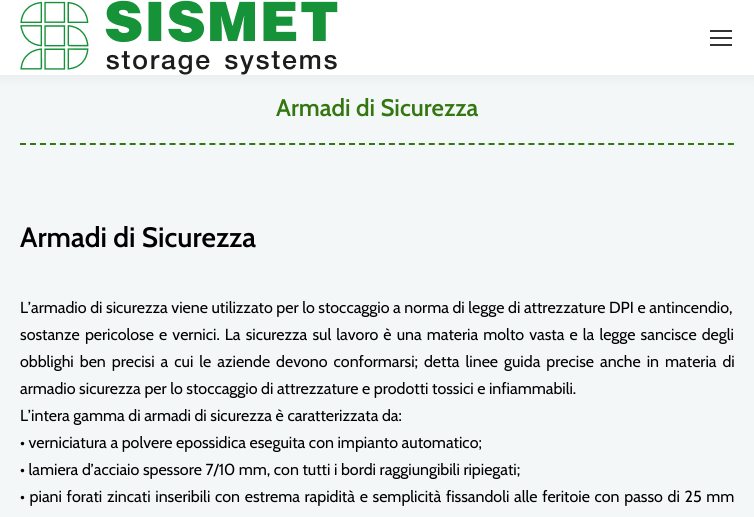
import math
import cairocffi as cairo

surface = cairo.ImageSurface(cairo.FORMAT_RGB24, 754, 517)
cr = cairo.Context(surface)
options = cairo.FontOptions()
options.set_hint_metrics(cairo.HINT_METRICS_OFF)
options.set_hint_style(cairo.HINT_STYLE_NONE)
cr.set_font_options(options)
cr.set_miter_limit(4)


def use_color(code):
    cr.set_source_rgb(*(v / 255 for v in bytes.fromhex(code[-6:])))


def spaced_text(x, y, s, letter, word):
    cr.move_to(x, y)
    for ch in s:
        cr.show_text(ch)
        cr.rel_move_to(letter + word * (ch == ' '), 0)


def round_rect(x, y, w, h, r):
    cr.new_sub_path()
    for i, (u, v) in enumerate([(x + w - r, y + h - r), (x + r, y + h - r), (x + r, y + r), (x + w - r, y + r)]):
        cr.arc(u, v, r, i * math.pi / 2, (i + 1) * math.pi / 2)
    cr.close_path()


def shadow(x, y, w, h, r, blur, alpha):
    cr.push_group_with_content(cairo.CONTENT_ALPHA)
    cr.set_operator(cairo.OPERATOR_SOURCE)
    for i in range(15, -16, -2):
        e = blur * i / 6
        if min(w, h) + 2 * e > 0:
            cr.set_source_rgba(0, 0, 0, alpha * math.erfc((i - 1) / 8.5) / 2)
            round_rect(x - e, y - e, w + 2 * e, h + 2 * e, max(0, min(r + e + blur * .6, min(w, h) / 2 + e)))
            cr.fill()
    cr.mask(cr.pop_group())


def picture(path, x, y, w, h):
    cr.save()
    cr.set_source_surface(cairo.ImageSurface.create_from_png(path), x, y)
    cr.rectangle(x, y, w, h)
    cr.fill()
    cr.restore()


use_color("#f3f7f8")
cr.paint()
use_color("#000000")
shadow(-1, -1, 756, 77, 0, 7.5, 0.07)
use_color("#ffffff")
cr.rectangle(0, 0, 754, 75)
cr.fill()
picture("img1.png", 20, 0, 318, 75)
use_color("#333333")
cr.rectangle(710, 30, 22, 2)
cr.fill()
cr.rectangle(710, 37, 22, 2)
cr.fill()
cr.rectangle(710, 44, 22, 2)
cr.fill()
cr.select_font_face("Cabin SemiBold")
cr.set_font_size(24)
use_color("#347610")
cr.move_to(276, 116)
cr.show_text("Armadi di Sicurezza")
cr.new_path()
cr.move_to(20, 144)
cr.line_to(734, 144)
cr.set_dash([6, 3.97])
cr.stroke()
cr.set_font_size(28)
use_color("#000000")
cr.move_to(20, 247)
cr.show_text("Armadi di Sicurezza")
cr.select_font_face("Cabin")
cr.set_font_size(16)
cr.move_to(20, 313)
cr.show_text("L’armadio di sicurezza viene utilizzato per lo stoccaggio a norma di legge di attrezzature DPI e antincendio,")
spaced_text(20, 340, "sostanze pericolose e vernici. La sicurezza sul lavoro è una materia molto vasta e la legge sancisce degli", 0, 1.5)
spaced_text(20, 367, "obblighi ben precisi a cui le aziende devono conformarsi; detta linee guida precise anche in materia di", 0, 2.4)
cr.move_to(20, 394)
cr.show_text("armadio sicurezza per lo stoccaggio di attrezzature e prodotti tossici e infiammabili.")
cr.move_to(20, 421)
cr.show_text("L’intera gamma di armadi di sicurezza è caratterizzata da:")
cr.move_to(20, 448)
cr.show_text("• verniciatura a polvere epossidica eseguita con impianto automatico;")
cr.move_to(20, 475)
cr.show_text("• lamiera d’acciaio spessore 7/10 mm, con tutti i bordi raggiungibili ripiegati;")
spaced_text(20, 502, "• piani forati zincati inseribili con estrema rapidità e semplicità fissandoli alle feritoie con passo di 25 mm", 0, 1.1)
surface.write_to_png("result.png")
